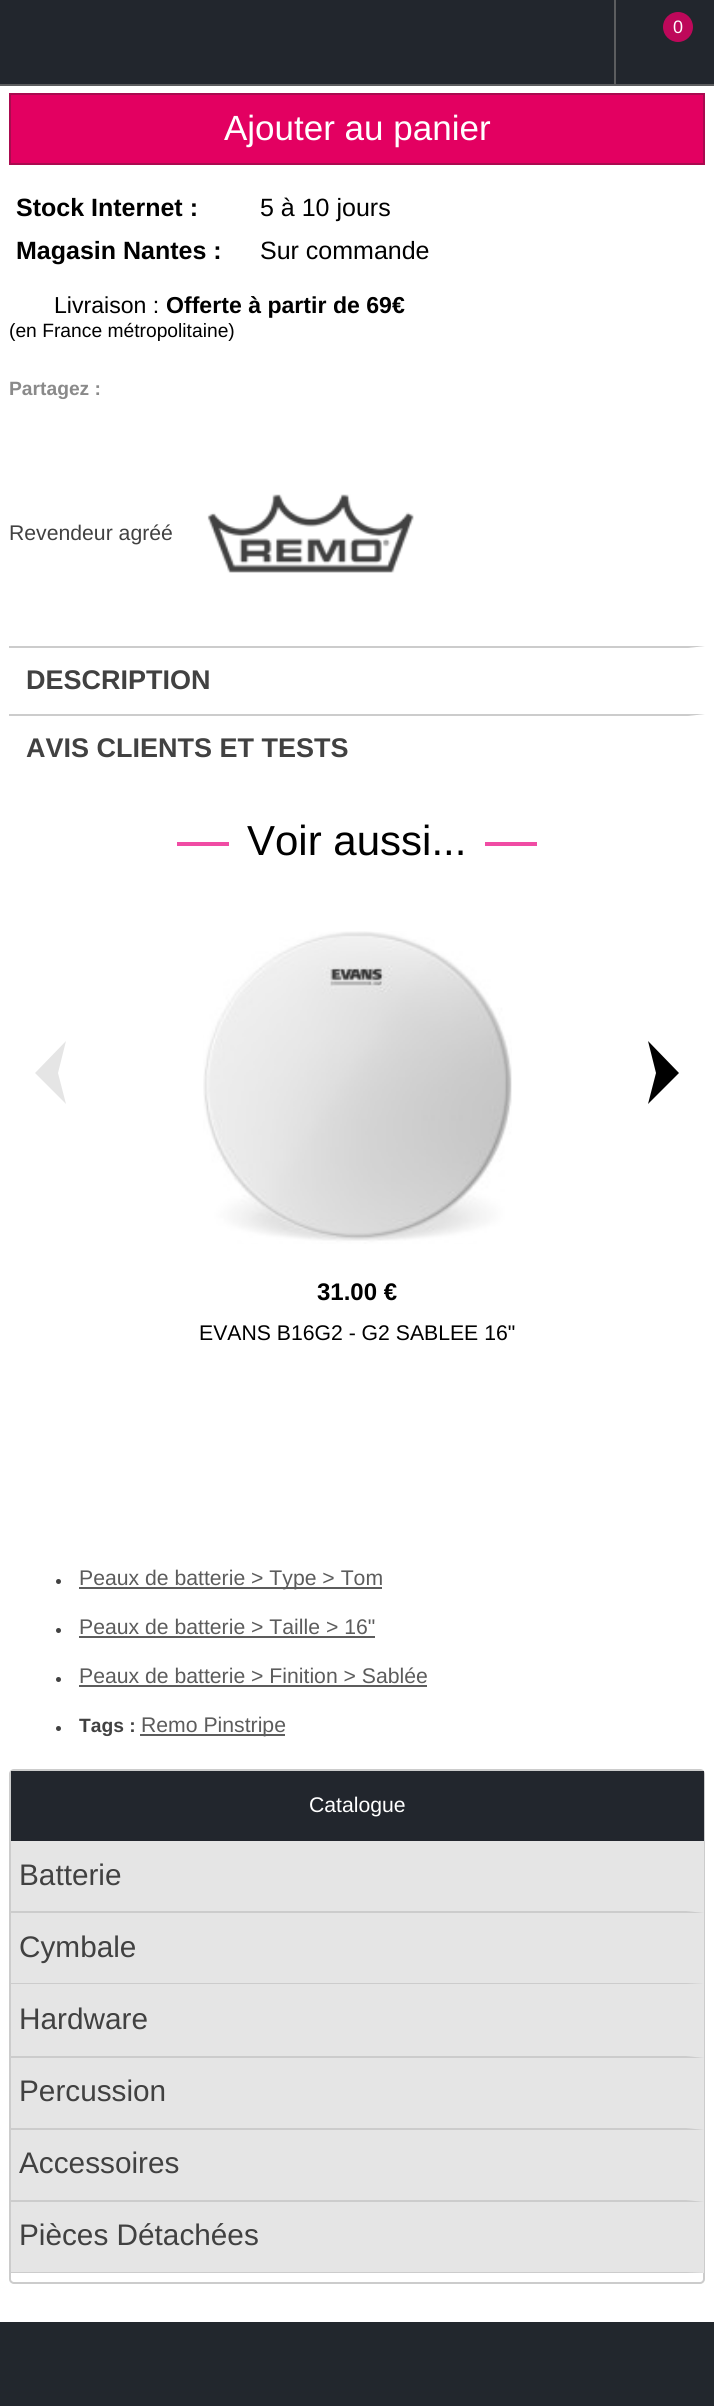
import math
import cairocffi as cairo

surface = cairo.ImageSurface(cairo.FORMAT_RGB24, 714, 2406)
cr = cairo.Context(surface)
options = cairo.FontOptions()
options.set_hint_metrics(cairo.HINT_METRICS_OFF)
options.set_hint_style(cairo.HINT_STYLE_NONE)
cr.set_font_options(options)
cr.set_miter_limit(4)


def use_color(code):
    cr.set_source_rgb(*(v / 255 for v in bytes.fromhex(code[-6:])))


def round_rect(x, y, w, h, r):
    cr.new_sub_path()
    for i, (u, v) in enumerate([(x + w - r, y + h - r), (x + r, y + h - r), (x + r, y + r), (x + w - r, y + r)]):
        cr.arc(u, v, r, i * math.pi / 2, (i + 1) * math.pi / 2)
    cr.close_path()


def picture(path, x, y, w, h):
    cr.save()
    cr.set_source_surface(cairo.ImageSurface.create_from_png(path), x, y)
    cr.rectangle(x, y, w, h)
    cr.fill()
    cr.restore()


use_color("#ffffff")
cr.paint()
use_color("#22262d")
cr.rectangle(0, 0, 714, 84)
cr.fill()
use_color("#5c5d5f")
cr.rectangle(0, 84, 714, 2)
cr.fill()
cr.rectangle(614, 0, 2, 84)
cr.fill()
use_color("#be085a")
cr.arc(678, 27, 15, 0, 2 * math.pi)
cr.fill()
cr.select_font_face("Liberation Sans")
cr.set_font_size(18)
use_color("#ffffff")
cr.move_to(673, 33)
cr.show_text("0")
use_color("#e30061")
cr.rectangle(10, 94, 694, 70)
cr.fill_preserve()
use_color("#aa0a4f")
cr.stroke()
cr.set_font_size(35)
use_color("#ffffff")
cr.move_to(224, 140)
cr.show_text("Ajouter au panier")
cr.select_font_face("Liberation Sans", cairo.FONT_SLANT_NORMAL, cairo.FONT_WEIGHT_BOLD)
cr.set_font_size(25)
use_color("#000000")
cr.move_to(16, 216)
cr.show_text("Stock Internet :")
cr.select_font_face("Liberation Sans")
cr.move_to(260, 216)
cr.show_text("5 à 10 jours")
cr.select_font_face("Liberation Sans", cairo.FONT_SLANT_NORMAL, cairo.FONT_WEIGHT_BOLD)
cr.move_to(16, 259)
cr.show_text("Magasin Nantes :")
cr.select_font_face("Liberation Sans")
cr.move_to(260, 259)
cr.show_text("Sur commande")
cr.set_font_size(23.1)
cr.move_to(54, 313)
cr.show_text("Livraison :")
cr.select_font_face("Liberation Sans", cairo.FONT_SLANT_NORMAL, cairo.FONT_WEIGHT_BOLD)
cr.move_to(166, 313)
cr.show_text("Offerte à partir de 69€")
cr.select_font_face("Liberation Sans")
cr.set_font_size(19.25)
cr.move_to(9, 337)
cr.show_text("(en France métropolitaine)")
cr.select_font_face("Liberation Sans", cairo.FONT_SLANT_NORMAL, cairo.FONT_WEIGHT_BOLD)
use_color("#8a8a8a")
cr.move_to(9, 395)
cr.show_text("Partagez :")
cr.select_font_face("Liberation Sans")
cr.set_font_size(21.2)
use_color("#414141")
cr.move_to(9, 540)
cr.show_text("Revendeur agréé")
picture("img1.png", 207, 494, 207, 79)
use_color("#cccccc")
cr.new_path()
cr.move_to(9, 646)
cr.line_to(705, 646)
cr.line_to(688, 648)
cr.line_to(9, 648)
cr.close_path()
cr.fill()
cr.select_font_face("Liberation Sans", cairo.FONT_SLANT_NORMAL, cairo.FONT_WEIGHT_BOLD)
cr.set_font_size(27)
use_color("#414141")
cr.move_to(26, 689)
cr.show_text("DESCRIPTION")
use_color("#cccccc")
cr.new_path()
cr.move_to(9, 714)
cr.line_to(705, 714)
cr.line_to(688, 716)
cr.line_to(9, 716)
cr.close_path()
cr.fill()
use_color("#414141")
cr.move_to(26, 757)
cr.show_text("AVIS CLIENTS ET TESTS")
use_color("#f04ca4")
cr.rectangle(177, 842, 52, 4)
cr.fill()
cr.select_font_face("Liberation Sans")
cr.set_font_size(42)
use_color("#000000")
cr.move_to(247, 855)
cr.show_text("Voir aussi...")
use_color("#f04ca4")
cr.rectangle(485, 842, 52, 4)
cr.fill()
use_color("#e5e5e5")
cr.new_path()
cr.move_to(66, 1041)
cr.line_to(35, 1073)
cr.line_to(66, 1104)
cr.line_to(58, 1073)
cr.close_path()
cr.fill()
use_color("#000000")
cr.new_path()
cr.move_to(648, 1041)
cr.line_to(679, 1073)
cr.line_to(648, 1104)
cr.line_to(656, 1073)
cr.close_path()
cr.fill()
picture("img2.png", 203, 931, 309, 313)
cr.select_font_face("Liberation Sans", cairo.FONT_SLANT_NORMAL, cairo.FONT_WEIGHT_BOLD)
cr.set_font_size(24)
cr.move_to(317, 1300)
cr.show_text("31.00 €")
cr.select_font_face("Liberation Sans")
cr.set_font_size(21.2)
cr.move_to(199, 1340)
cr.show_text("EVANS B16G2 - G2 SABLEE 16\"")
use_color("#414141")
cr.new_path()
cr.arc(58.5, 1581.5, 2.5, 0, 2 * math.pi)
cr.fill()
use_color("#5c5c5c")
cr.rectangle(79, 1587, 303, 2)
cr.fill()
cr.move_to(79, 1585)
cr.show_text("Peaux de batterie > Type > Tom")
use_color("#414141")
cr.new_path()
cr.arc(58.5, 1630.5, 2.5, 0, 2 * math.pi)
cr.fill()
use_color("#5c5c5c")
cr.move_to(79, 1634)
cr.show_text("Peaux de batterie > Taille > 16\"")
cr.rectangle(79, 1636, 296, 2)
cr.fill()
use_color("#414141")
cr.arc(58.5, 1679.5, 2.5, 0, 2 * math.pi)
cr.fill()
use_color("#5c5c5c")
cr.move_to(79, 1683)
cr.show_text("Peaux de batterie > Finition > Sablée")
cr.rectangle(79, 1685, 348, 2)
cr.fill()
use_color("#414141")
cr.arc(58.5, 1728.5, 2.5, 0, 2 * math.pi)
cr.fill()
cr.select_font_face("Liberation Sans", cairo.FONT_SLANT_NORMAL, cairo.FONT_WEIGHT_BOLD)
cr.set_font_size(19.25)
cr.move_to(79, 1732)
cr.show_text("Tags :")
use_color("#5c5c5c")
cr.rectangle(140, 1734, 145, 2)
cr.fill()
cr.select_font_face("Liberation Sans")
cr.set_font_size(21.2)
cr.move_to(141, 1732)
cr.show_text("Remo Pinstripe")
round_rect(10, 1770, 694, 513, 4)
use_color("#cccccc")
cr.stroke()
use_color("#22262d")
cr.rectangle(11, 1771, 693, 70)
cr.fill()
use_color("#ffffff")
cr.move_to(309, 1812)
cr.show_text("Catalogue")
use_color("#e5e5e5")
cr.rectangle(11, 1841, 693, 432)
cr.fill()
use_color("#cccccc")
cr.new_path()
cr.move_to(704, 1913)
cr.line_to(10, 1913)
cr.line_to(10, 1911)
cr.line_to(686, 1911)
cr.close_path()
cr.fill()
cr.set_font_size(29.75)
use_color("#414141")
cr.move_to(19, 1885)
cr.show_text("Batterie")
use_color("#cccccc")
cr.new_path()
cr.move_to(704, 1984)
cr.line_to(10, 1984)
cr.line_to(10, 1983)
cr.line_to(686, 1983)
cr.close_path()
cr.fill()
use_color("#414141")
cr.move_to(19, 1957)
cr.show_text("Cymbale")
use_color("#cccccc")
cr.new_path()
cr.move_to(704, 2058)
cr.line_to(10, 2058)
cr.line_to(10, 2056)
cr.line_to(686, 2056)
cr.close_path()
cr.fill()
use_color("#414141")
cr.move_to(19, 2029)
cr.show_text("Hardware")
use_color("#cccccc")
cr.new_path()
cr.move_to(704, 2130)
cr.line_to(10, 2130)
cr.line_to(10, 2128)
cr.line_to(686, 2128)
cr.close_path()
cr.fill()
use_color("#414141")
cr.move_to(19, 2101)
cr.show_text("Percussion")
use_color("#cccccc")
cr.new_path()
cr.move_to(704, 2202)
cr.line_to(10, 2202)
cr.line_to(10, 2200)
cr.line_to(686, 2200)
cr.close_path()
cr.fill()
use_color("#414141")
cr.move_to(19, 2173)
cr.show_text("Accessoires")
use_color("#cccccc")
cr.new_path()
cr.move_to(704, 2273)
cr.line_to(10, 2273)
cr.line_to(10, 2272)
cr.line_to(686, 2272)
cr.close_path()
cr.fill()
use_color("#414141")
cr.move_to(19, 2245)
cr.show_text("Pièces Détachées")
use_color("#22272d")
cr.rectangle(0, 2322, 714, 84)
cr.fill()
surface.write_to_png("result.png")
